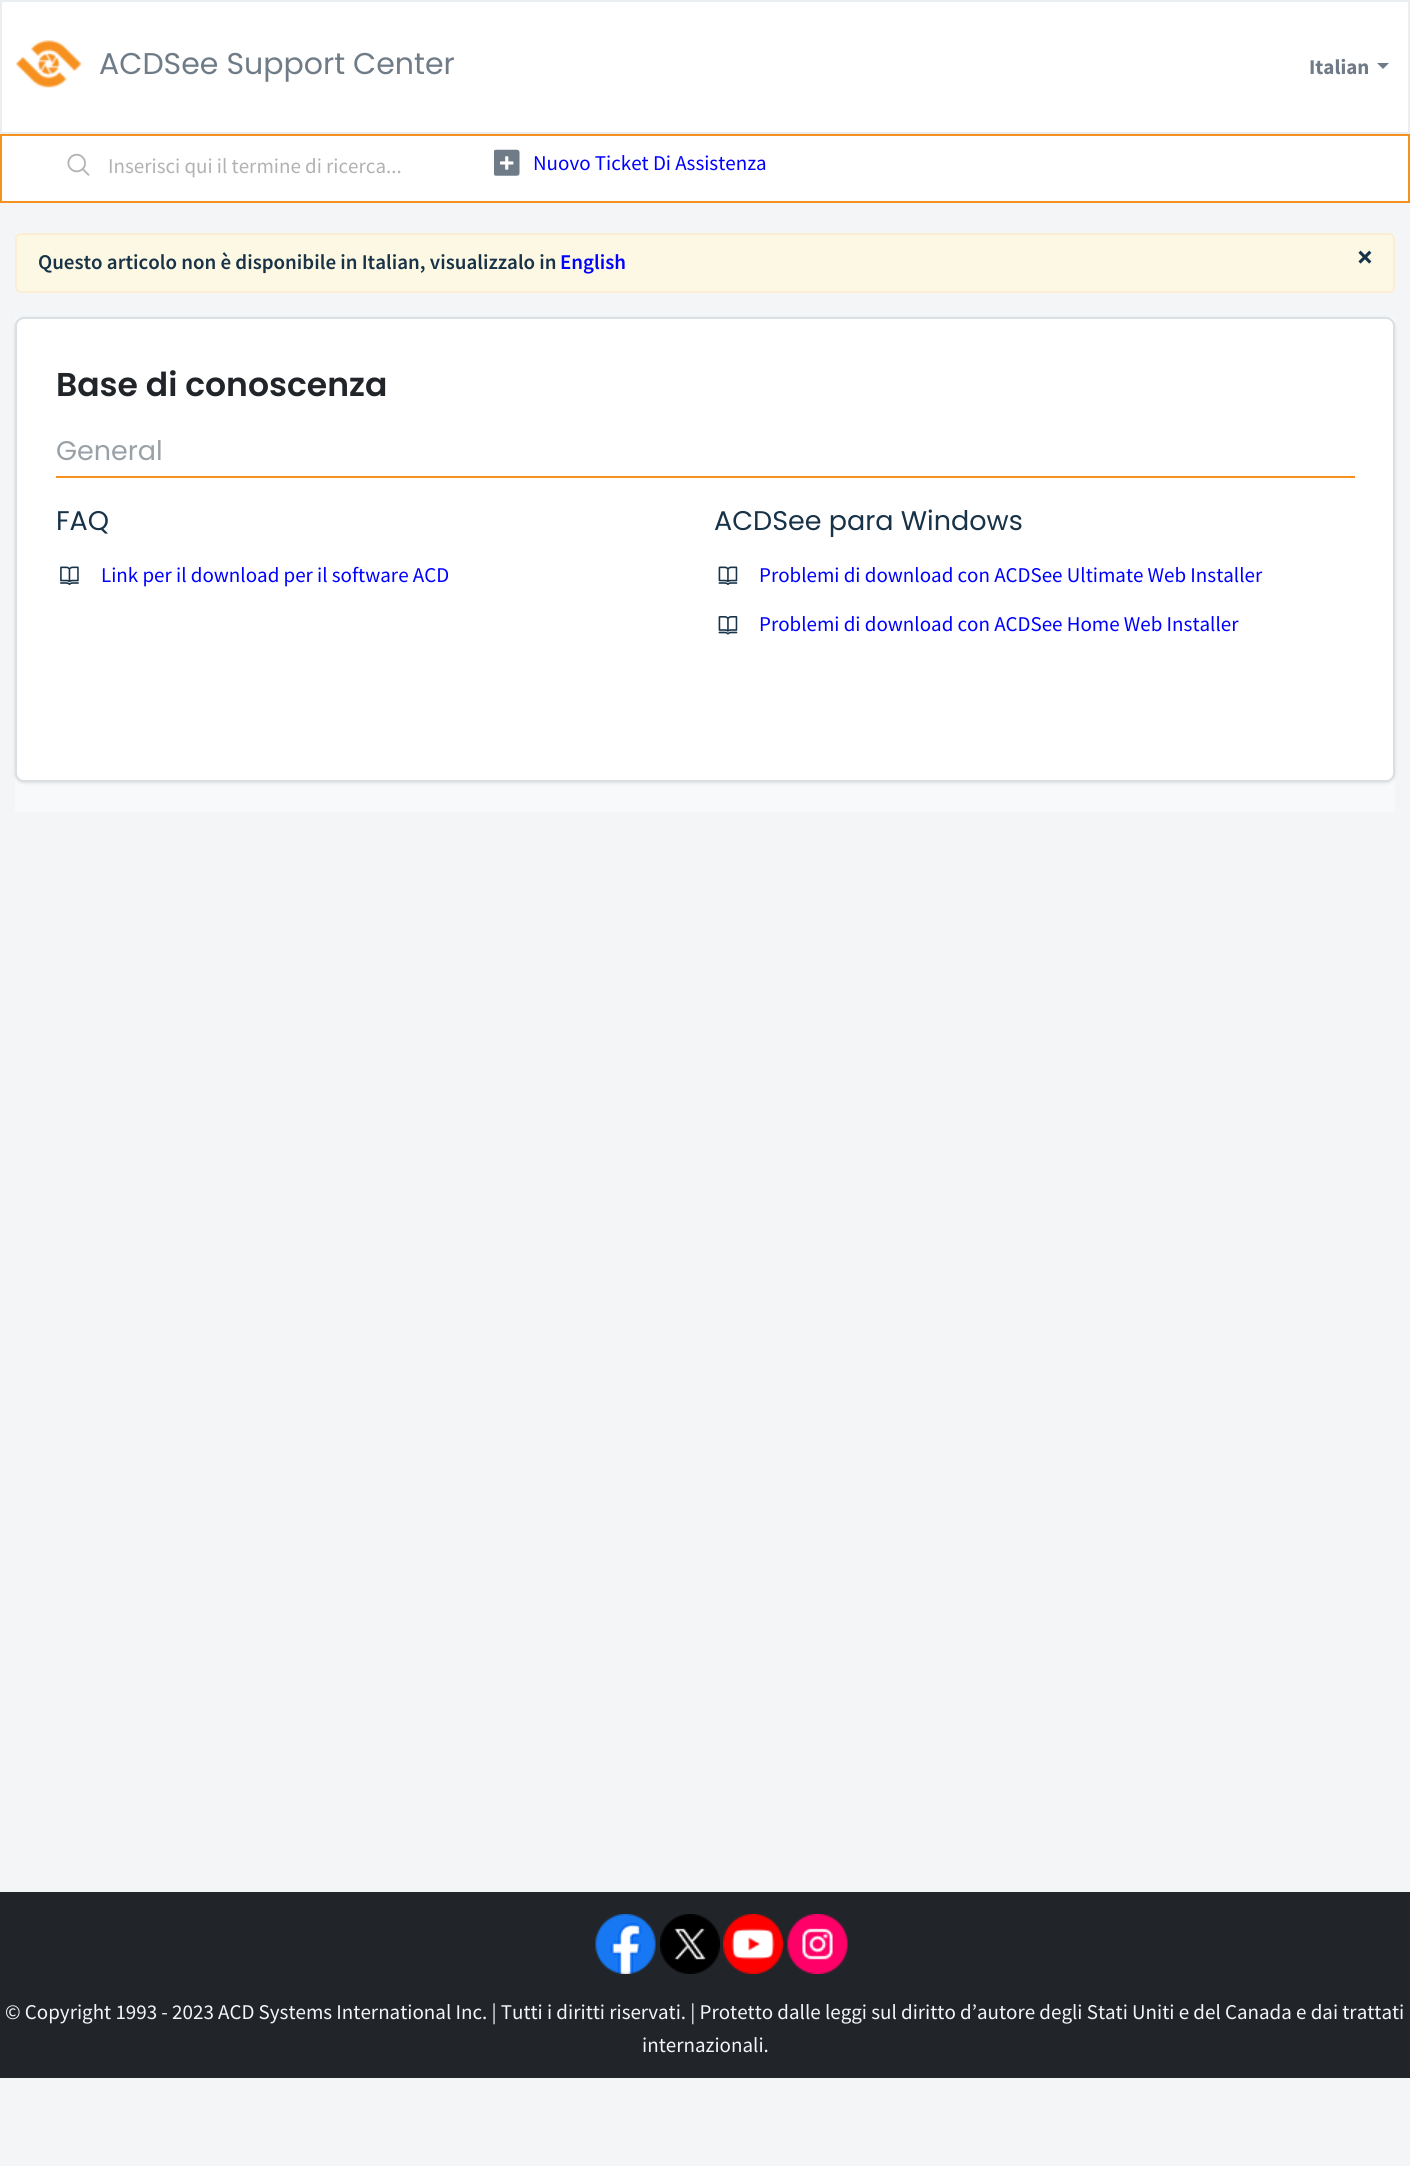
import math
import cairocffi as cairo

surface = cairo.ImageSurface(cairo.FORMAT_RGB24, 1410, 2166)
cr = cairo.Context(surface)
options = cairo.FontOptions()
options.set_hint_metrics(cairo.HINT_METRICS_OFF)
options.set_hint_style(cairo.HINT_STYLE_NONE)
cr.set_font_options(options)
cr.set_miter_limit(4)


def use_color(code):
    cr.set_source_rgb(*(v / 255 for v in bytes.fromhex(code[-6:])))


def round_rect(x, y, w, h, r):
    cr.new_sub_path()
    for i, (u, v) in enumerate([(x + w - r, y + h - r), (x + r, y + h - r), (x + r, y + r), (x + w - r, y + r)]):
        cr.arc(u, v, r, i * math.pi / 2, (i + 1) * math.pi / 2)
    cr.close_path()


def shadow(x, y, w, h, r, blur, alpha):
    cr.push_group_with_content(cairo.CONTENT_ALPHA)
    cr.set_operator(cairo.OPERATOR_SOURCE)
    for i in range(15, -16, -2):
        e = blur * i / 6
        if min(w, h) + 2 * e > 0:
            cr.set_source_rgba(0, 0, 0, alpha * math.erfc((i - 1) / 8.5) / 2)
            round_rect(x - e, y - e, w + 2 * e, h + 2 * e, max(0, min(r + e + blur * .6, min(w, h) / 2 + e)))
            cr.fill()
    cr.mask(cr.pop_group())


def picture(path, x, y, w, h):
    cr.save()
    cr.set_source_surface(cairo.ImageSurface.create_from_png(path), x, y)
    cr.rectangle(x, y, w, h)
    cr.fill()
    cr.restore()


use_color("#f3f5f7")
cr.paint()
use_color("#ffffff")
cr.rectangle(1, 1, 1408, 132)
cr.fill_preserve()
use_color("#ebeef0")
cr.stroke()
picture("img1.png", 15, 40, 67, 49)
cr.select_font_face("Poppins")
cr.set_font_size(30)
use_color("#6f7c87")
cr.move_to(99, 74)
cr.show_text("ACDSee Support Center")
cr.select_font_face("Source Sans Pro", cairo.FONT_SLANT_NORMAL, cairo.FONT_WEIGHT_BOLD)
cr.set_font_size(21)
cr.move_to(1309, 74)
cr.show_text("Italian")
cr.new_path()
cr.move_to(1377, 63)
cr.line_to(1389, 63)
cr.line_to(1383, 69)
cr.close_path()
cr.fill()
use_color("#ffffff")
cr.rectangle(1, 135, 1408, 67)
cr.fill_preserve()
use_color("#f69120")
cr.stroke()
picture("img2.png", 67, 153, 23, 23)
cr.select_font_face("Source Sans Pro")
use_color("#b2b2b2")
cr.move_to(108, 173)
cr.show_text("Inserisci qui il termine di ricerca...")
picture("img3.png", 494, 149, 26, 27)
use_color("#0000ff")
cr.move_to(533, 170)
cr.show_text("Nuovo Ticket Di Assistenza")
use_color("#fcf8e3")
round_rect(16, 234, 1378, 58, 5)
cr.fill_preserve()
use_color("#fbeed5")
cr.stroke()
cr.select_font_face("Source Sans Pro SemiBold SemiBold")
use_color("#183247")
cr.move_to(38, 269)
cr.show_text("Questo articolo non è disponibile in Italian, visualizzalo in")
use_color("#0000ff")
cr.move_to(560, 269)
cr.show_text("English")
cr.select_font_face("Source Sans Pro", cairo.FONT_SLANT_NORMAL, cairo.FONT_WEIGHT_BOLD)
cr.set_font_size(30)
use_color("#183247")
cr.move_to(1357, 267)
cr.show_text("×")
use_color("#f8f9fa")
cr.rectangle(15, 317, 1380, 495)
cr.fill()
use_color("#3f3f44")
shadow(15, 318, 1380, 465, 9, 1.5, 0.15)
use_color("#ffffff")
round_rect(16, 318, 1378, 463, 8)
cr.fill_preserve()
use_color("#dadfe3")
cr.stroke()
cr.select_font_face("Poppins SemiBold")
cr.set_font_size(33)
use_color("#212529")
cr.move_to(56, 396)
cr.show_text("Base di conoscenza")
use_color("#f69120")
cr.rectangle(56, 476, 1299, 2)
cr.fill()
cr.select_font_face("Poppins")
cr.set_font_size(27)
use_color("#9aa1a6")
cr.move_to(56, 460)
cr.show_text("General")
use_color("#183247")
cr.move_to(56, 530)
cr.show_text("FAQ")
picture("img4.png", 60, 566, 19, 20)
cr.select_font_face("Source Sans Pro")
cr.set_font_size(21)
use_color("#0000ff")
cr.move_to(101, 582)
cr.show_text("Link per il download per il software ACD")
cr.select_font_face("Poppins")
cr.set_font_size(27)
use_color("#183247")
cr.move_to(714, 530)
cr.show_text("ACDSee para Windows")
picture("img5.png", 718, 566, 20, 19)
cr.select_font_face("Source Sans Pro")
cr.set_font_size(21)
use_color("#0000ff")
cr.move_to(759, 582)
cr.show_text("Problemi di download con ACDSee Ultimate Web Installer")
picture("img6.png", 718, 616, 20, 19)
cr.move_to(759, 631)
cr.show_text("Problemi di download con ACDSee Home Web Installer")
use_color("#212529")
cr.rectangle(0, 1892, 1410, 186)
cr.fill()
picture("img7.png", 595, 1914, 61, 60)
picture("img8.png", 660, 1914, 60, 60)
picture("img9.png", 723, 1914, 60, 60)
picture("img10.png", 787, 1914, 61, 60)
use_color("#f3f5f7")
cr.move_to(5, 2019)
cr.show_text("© Copyright 1993 - 2023 ACD Systems International Inc. | Tutti i diritti riservati. | Protetto dalle leggi sul diritto d’autore degli Stati Uniti e del Canada e dai trattati")
cr.move_to(642, 2052)
cr.show_text("internazionali.")
surface.write_to_png("result.png")
